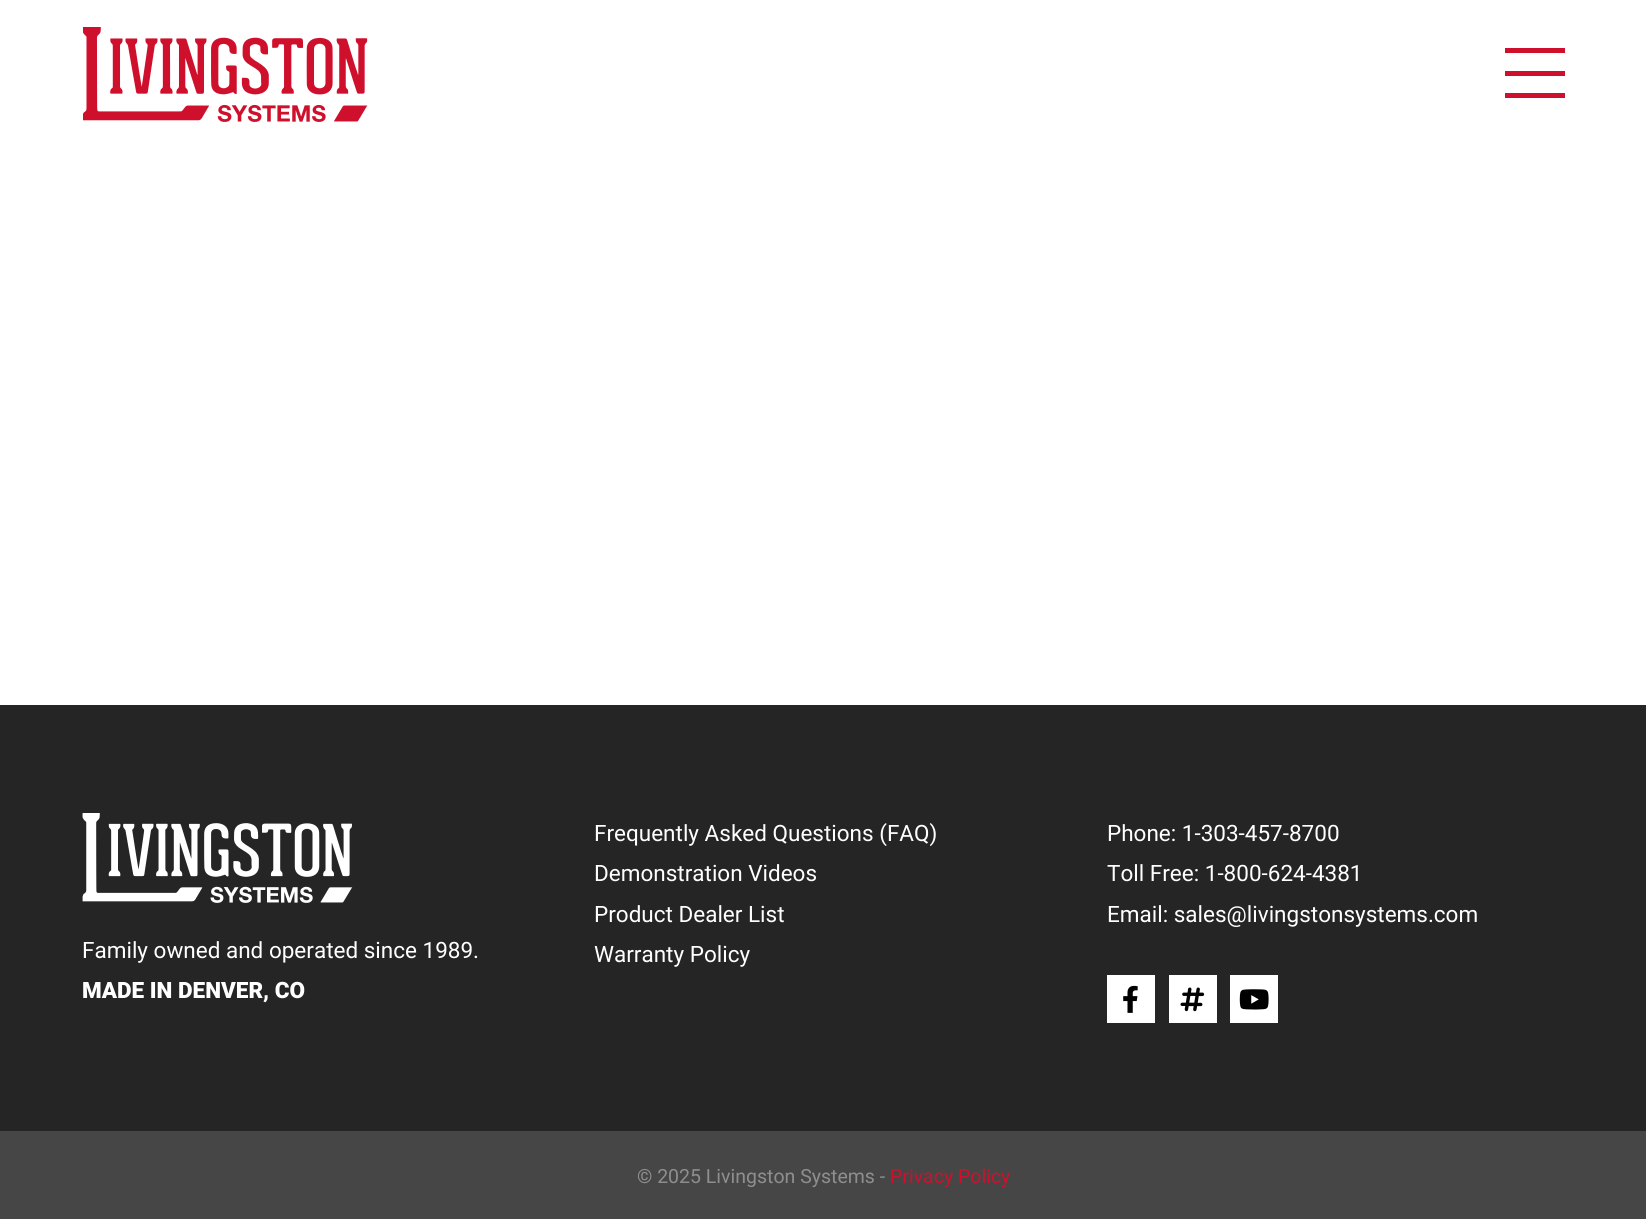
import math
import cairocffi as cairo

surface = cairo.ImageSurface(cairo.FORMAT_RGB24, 1646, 1219)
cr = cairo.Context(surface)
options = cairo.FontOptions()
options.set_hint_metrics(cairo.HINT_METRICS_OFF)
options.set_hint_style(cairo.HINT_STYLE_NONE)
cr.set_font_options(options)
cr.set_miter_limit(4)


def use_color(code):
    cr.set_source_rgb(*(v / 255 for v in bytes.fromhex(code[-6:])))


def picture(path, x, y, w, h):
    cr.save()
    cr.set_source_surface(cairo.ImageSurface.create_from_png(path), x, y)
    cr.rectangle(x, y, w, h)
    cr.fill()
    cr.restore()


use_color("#ffffff")
cr.paint()
picture("img1.png", 83, 27, 285, 95)
use_color("#cf102d")
cr.rectangle(1505, 48, 60, 5)
cr.fill()
cr.rectangle(1505, 71, 60, 5)
cr.fill()
cr.rectangle(1505, 93, 60, 5)
cr.fill()
use_color("#252525")
cr.rectangle(0, 705, 1646, 426)
cr.fill()
cr.select_font_face("Roboto")
cr.set_font_size(22.5)
use_color("#ffffff")
cr.move_to(594, 841)
cr.show_text("Frequently Asked Questions (FAQ)")
cr.move_to(594, 881)
cr.show_text("Demonstration Videos")
cr.move_to(594, 922)
cr.show_text("Product Dealer List")
cr.move_to(594, 962)
cr.show_text("Warranty Policy")
cr.move_to(1107, 841)
cr.show_text("Phone: 1-303-457-8700")
cr.move_to(1107, 881)
cr.show_text("Toll Free: 1-800-624-4381")
cr.move_to(1107, 922)
cr.show_text("Email: sales@livingstonsystems.com")
cr.rectangle(1107, 975, 48, 48)
cr.fill()
picture("img2.png", 1123, 985, 15, 28)
cr.rectangle(1169, 975, 48, 48)
cr.fill()
picture("img3.png", 1180, 987, 25, 25)
cr.rectangle(1230, 975, 48, 48)
cr.fill()
picture("img4.png", 1239, 989, 30, 21)
picture("img5.png", 82, 813, 271, 90)
cr.move_to(82, 958)
cr.show_text("Family owned and operated since 1989.")
cr.select_font_face("Roboto Black")
cr.move_to(82, 998)
cr.show_text("MADE IN DENVER, CO")
use_color("#464646")
cr.rectangle(0, 1131, 1646, 88)
cr.fill()
cr.select_font_face("Roboto")
cr.set_font_size(19.5)
use_color("#8e8e8e")
cr.move_to(637, 1183)
cr.show_text("© 2025 Livingston Systems -")
use_color("#cf102d")
cr.move_to(890, 1183)
cr.show_text("Privacy Policy")
surface.write_to_png("result.png")
